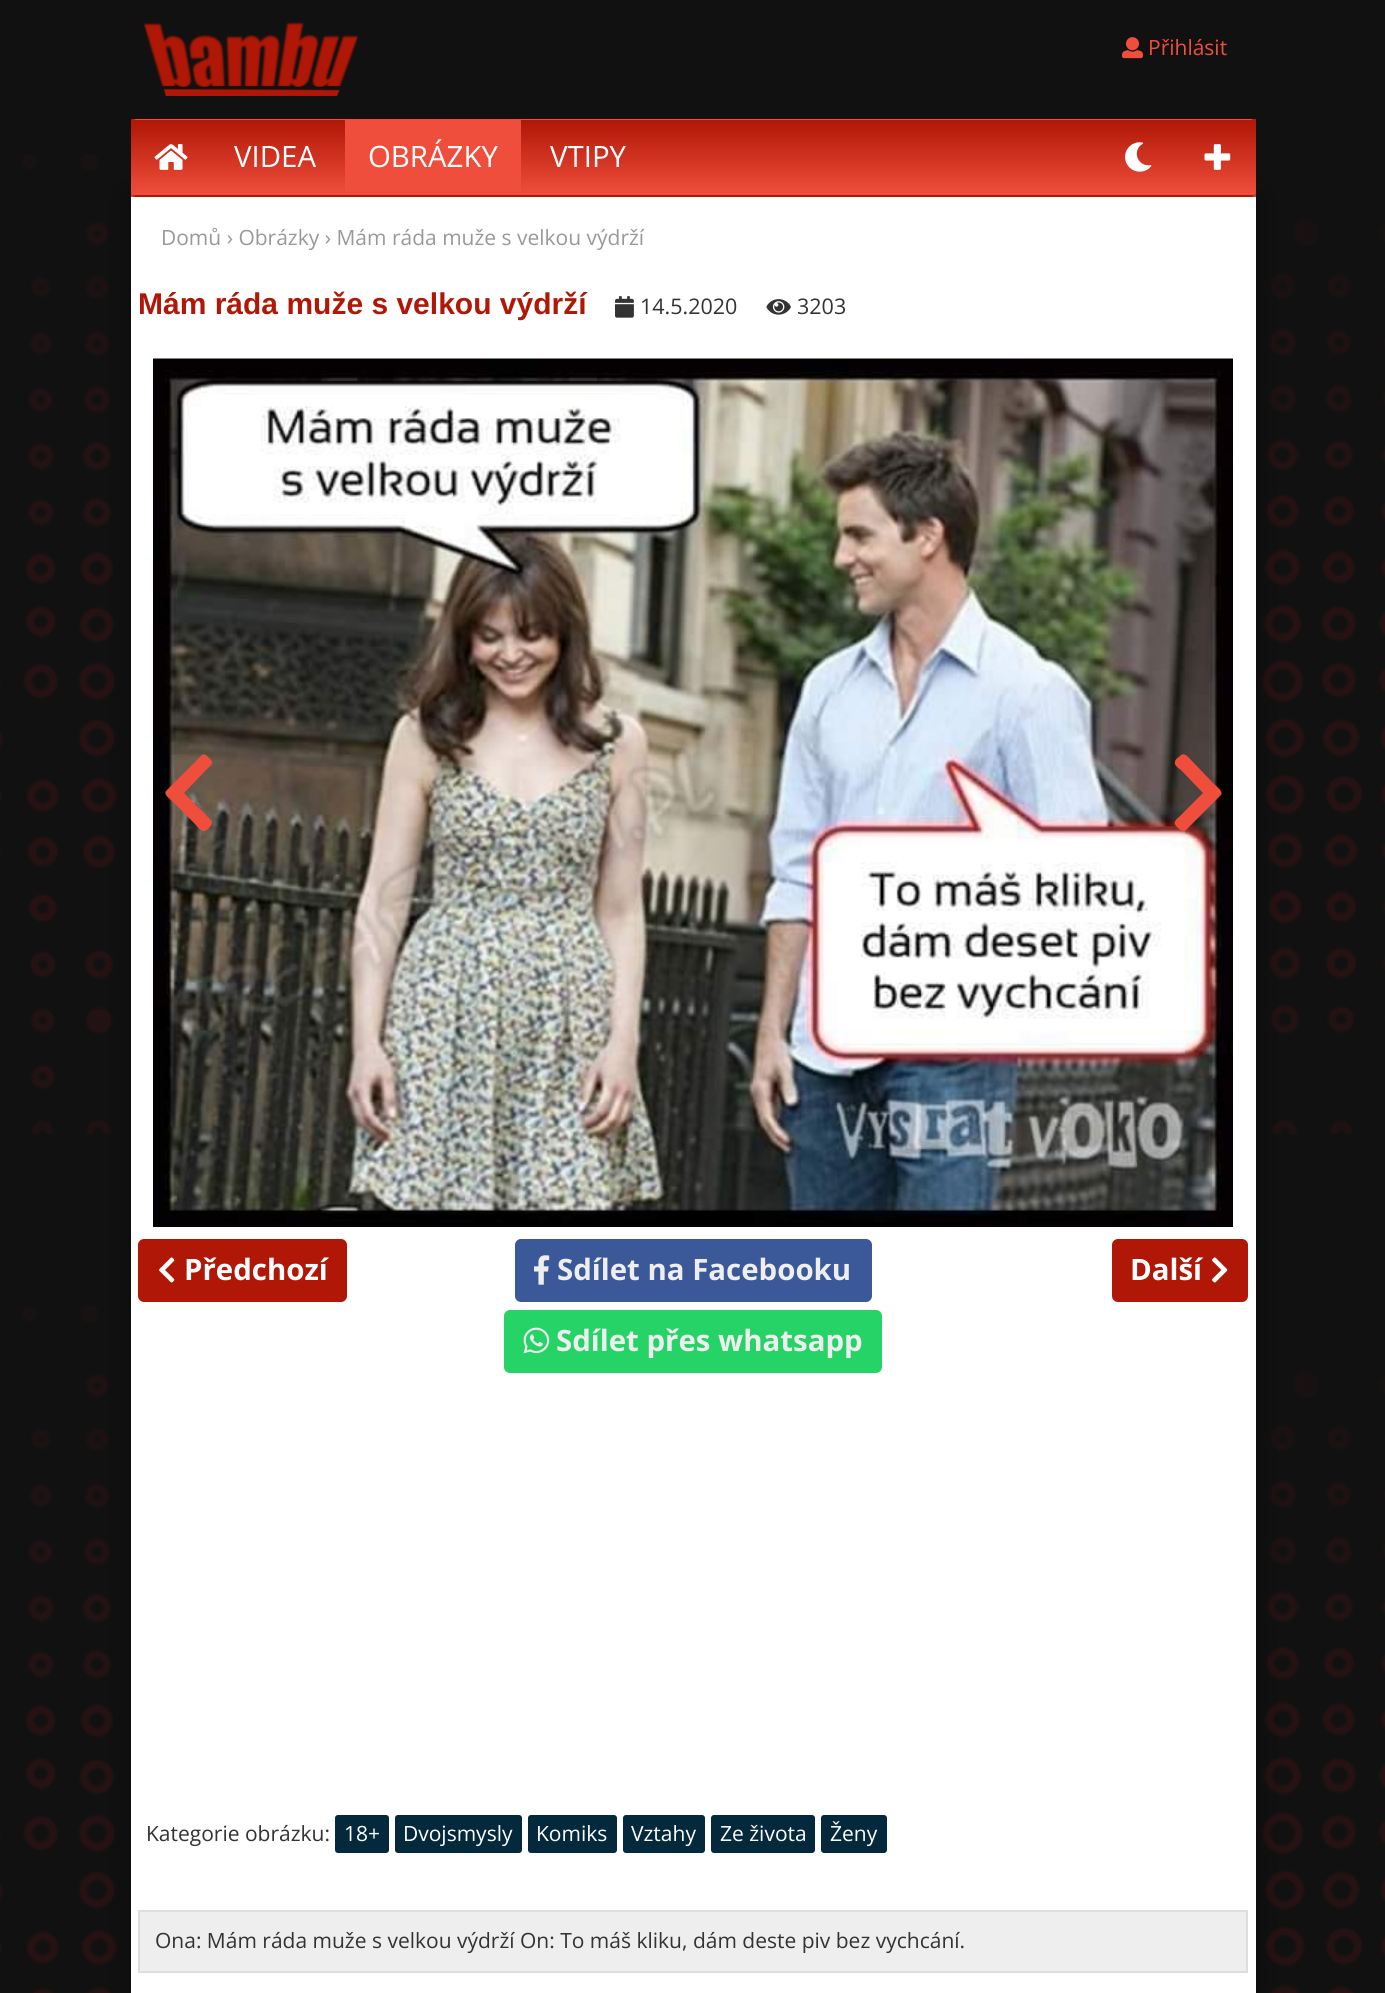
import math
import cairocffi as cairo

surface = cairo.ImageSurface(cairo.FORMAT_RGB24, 1385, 1993)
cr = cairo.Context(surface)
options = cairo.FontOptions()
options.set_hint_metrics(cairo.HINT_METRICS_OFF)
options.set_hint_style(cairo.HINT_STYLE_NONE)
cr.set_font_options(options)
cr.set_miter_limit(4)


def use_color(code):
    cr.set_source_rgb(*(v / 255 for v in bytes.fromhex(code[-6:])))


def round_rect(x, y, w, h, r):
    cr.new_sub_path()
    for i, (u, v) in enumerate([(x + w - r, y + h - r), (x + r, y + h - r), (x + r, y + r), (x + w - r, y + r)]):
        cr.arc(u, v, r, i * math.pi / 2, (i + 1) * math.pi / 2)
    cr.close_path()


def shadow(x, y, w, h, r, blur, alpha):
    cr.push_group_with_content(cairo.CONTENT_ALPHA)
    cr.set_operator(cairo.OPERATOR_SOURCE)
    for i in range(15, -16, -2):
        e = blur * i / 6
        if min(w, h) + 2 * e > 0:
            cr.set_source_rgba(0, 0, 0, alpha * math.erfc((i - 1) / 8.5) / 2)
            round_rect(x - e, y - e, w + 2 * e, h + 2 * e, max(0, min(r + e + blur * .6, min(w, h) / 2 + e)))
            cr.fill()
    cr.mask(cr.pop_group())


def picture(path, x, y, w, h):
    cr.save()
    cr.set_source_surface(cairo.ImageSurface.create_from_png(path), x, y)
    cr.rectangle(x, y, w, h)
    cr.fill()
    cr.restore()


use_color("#111111")
cr.paint()
picture("img1.png", 0, 154, 1385, 1839)
picture("img2.png", 143, 22, 216, 74)
picture("img3.png", 1122, 37, 21, 22)
cr.select_font_face("Open Sans")
cr.set_font_size(21)
use_color("#f04e3c")
cr.move_to(1148, 55)
cr.show_text("Přihlásit")
gradient = cairo.LinearGradient(693, 118, 693, 197)
gradient.add_color_stop_rgba(0, 0.69, 0.09, 0.024, 1)
gradient.add_color_stop_rgba(1, 0.941, 0.306, 0.235, 1)
cr.set_source(gradient)
cr.rectangle(131, 119, 1125, 78)
cr.fill()
cr.save()
round_rect(131, 119, 1125, 78, 6)
cr.clip()
gradient = cairo.LinearGradient(693, 45, 693, 120)
gradient.add_color_stop_rgba(0, 0.69, 0.09, 0.024, 1)
gradient.add_color_stop_rgba(1, 0.941, 0.306, 0.235, 1)
cr.set_source(gradient)
cr.rectangle(131, 119, 1125, 1)
cr.fill()
cr.restore()
use_color("#000000")
shadow(131, 197, 1125, 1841, 0, 15, 0.4)
cr.save()
round_rect(131, 119, 1125, 78, 6)
cr.clip()
gradient = cairo.LinearGradient(693, 120, 693, 195)
gradient.add_color_stop_rgba(0, 0.69, 0.09, 0.024, 1)
gradient.add_color_stop_rgba(1, 0.941, 0.306, 0.235, 1)
cr.set_source(gradient)
cr.rectangle(131, 120, 1125, 75)
cr.fill()
gradient = cairo.LinearGradient(693, 195, 693, 270)
gradient.add_color_stop_rgba(0, 0.69, 0.09, 0.024, 1)
gradient.add_color_stop_rgba(1, 0.941, 0.306, 0.235, 1)
cr.set_source(gradient)
cr.rectangle(131, 195, 1125, 2)
cr.fill()
cr.restore()
picture("img4.png", 154, 144, 34, 26)
cr.set_font_size(29.4)
use_color("#ffffff")
cr.move_to(234, 167)
cr.show_text("VIDEA")
use_color("#f04e3c")
cr.rectangle(345, 120, 176, 72)
cr.fill()
use_color("#ffffff")
cr.move_to(368, 167)
cr.show_text("OBRÁZKY")
cr.move_to(550, 167)
cr.show_text("VTIPY")
picture("img5.png", 1125, 142, 27, 30)
picture("img6.png", 1204, 144, 27, 26)
cr.rectangle(131, 197, 1125, 1796)
cr.fill()
cr.set_font_size(21)
use_color("#999999")
cr.move_to(161, 245)
cr.show_text("Domů › Obrázky › Mám ráda muže s velkou výdrží")
cr.select_font_face("Liberation Sans", cairo.FONT_SLANT_NORMAL, cairo.FONT_WEIGHT_BOLD)
cr.set_font_size(30)
use_color("#b01706")
cr.move_to(138, 314)
cr.show_text("Mám ráda muže s velkou výdrží")
picture("img7.png", 615, 296, 19, 22)
cr.select_font_face("Open Sans")
cr.set_font_size(21.5)
use_color("#333333")
cr.move_to(640, 314)
cr.show_text("14.5.2020")
picture("img8.png", 766, 299, 25, 16)
cr.move_to(797, 314)
cr.show_text("3203")
picture("img9.png", 153, 358, 1080, 869)
use_color("#f04e3c")
cr.new_path()
cr.move_to(167, 790)
cr.line_to(201, 756)
cr.curve_to(204, 752, 207, 756, 209, 758)
cr.curve_to(215, 763, 211, 765, 206, 770)
cr.line_to(184, 793)
cr.line_to(206, 815)
cr.curve_to(208, 818, 213, 820, 212, 824)
cr.curve_to(211, 826, 209, 827, 208, 829)
cr.curve_to(202, 834, 200, 829, 195, 824)
cr.line_to(172, 801)
cr.curve_to(170, 799, 162, 794, 167, 790)
cr.close_path()
cr.fill()
cr.new_path()
cr.move_to(1220, 796)
cr.line_to(1186, 830)
cr.curve_to(1183, 833, 1180, 830, 1177, 827)
cr.curve_to(1172, 822, 1176, 820, 1181, 815)
cr.line_to(1203, 793)
cr.line_to(1181, 770)
cr.curve_to(1178, 768, 1174, 765, 1175, 762)
cr.curve_to(1175, 760, 1177, 758, 1179, 757)
cr.curve_to(1184, 751, 1187, 756, 1192, 761)
cr.line_to(1214, 784)
cr.curve_to(1216, 786, 1225, 792, 1220, 796)
cr.close_path()
cr.fill()
use_color("#b01706")
round_rect(139, 1240, 207, 61, 5)
cr.fill_preserve()
cr.stroke()
picture("img10.png", 159, 1257, 16, 26)
cr.select_font_face("Open Sans", cairo.FONT_SLANT_NORMAL, cairo.FONT_WEIGHT_BOLD)
cr.set_font_size(29.4)
use_color("#ffffff")
cr.move_to(184, 1280)
cr.show_text("Předchozí")
use_color("#3b5998")
round_rect(515, 1239, 357, 63, 6)
cr.fill()
picture("img11.png", 534, 1255, 16, 30)
use_color("#eeeeee")
cr.move_to(557, 1280)
cr.show_text("Sdílet na Facebooku")
use_color("#25d366")
round_rect(504, 1310, 378, 63, 6)
cr.fill()
picture("img12.png", 523, 1327, 27, 27)
use_color("#eeeeee")
cr.move_to(556, 1351)
cr.show_text("Sdílet přes whatsapp")
use_color("#b01706")
round_rect(1113, 1240, 134, 61, 5)
cr.fill_preserve()
cr.stroke()
use_color("#ffffff")
cr.move_to(1130, 1280)
cr.show_text("Další")
picture("img13.png", 1212, 1257, 16, 26)
cr.select_font_face("Open Sans")
cr.set_font_size(21)
use_color("#333333")
cr.move_to(146, 1841)
cr.show_text("Kategorie obrázku:")
use_color("#04293d")
round_rect(335, 1815, 54, 38, 3)
cr.fill()
use_color("#ffffff")
cr.move_to(344, 1841)
cr.show_text("18+")
use_color("#04293d")
round_rect(395, 1815, 127, 38, 3)
cr.fill()
use_color("#ffffff")
cr.move_to(403, 1841)
cr.show_text("Dvojsmysly")
use_color("#04293d")
round_rect(528, 1815, 89, 38, 3)
cr.fill()
use_color("#ffffff")
cr.move_to(536, 1841)
cr.show_text("Komiks")
use_color("#04293d")
round_rect(623, 1815, 82, 38, 3)
cr.fill()
use_color("#ffffff")
cr.move_to(631, 1841)
cr.show_text("Vztahy")
use_color("#04293d")
round_rect(711, 1815, 104, 38, 3)
cr.fill()
use_color("#ffffff")
cr.move_to(720, 1841)
cr.show_text("Ze života")
use_color("#04293d")
round_rect(821, 1815, 66, 38, 3)
cr.fill()
use_color("#ffffff")
cr.move_to(830, 1841)
cr.show_text("Ženy")
use_color("#eeeeee")
cr.rectangle(139, 1911, 1108, 61)
cr.fill_preserve()
use_color("#dddddd")
cr.stroke()
use_color("#333333")
cr.move_to(155, 1948)
cr.show_text("Ona: Mám ráda muže s velkou výdrží On: To máš kliku, dám deste piv bez vychcání.")
surface.write_to_png("result.png")
